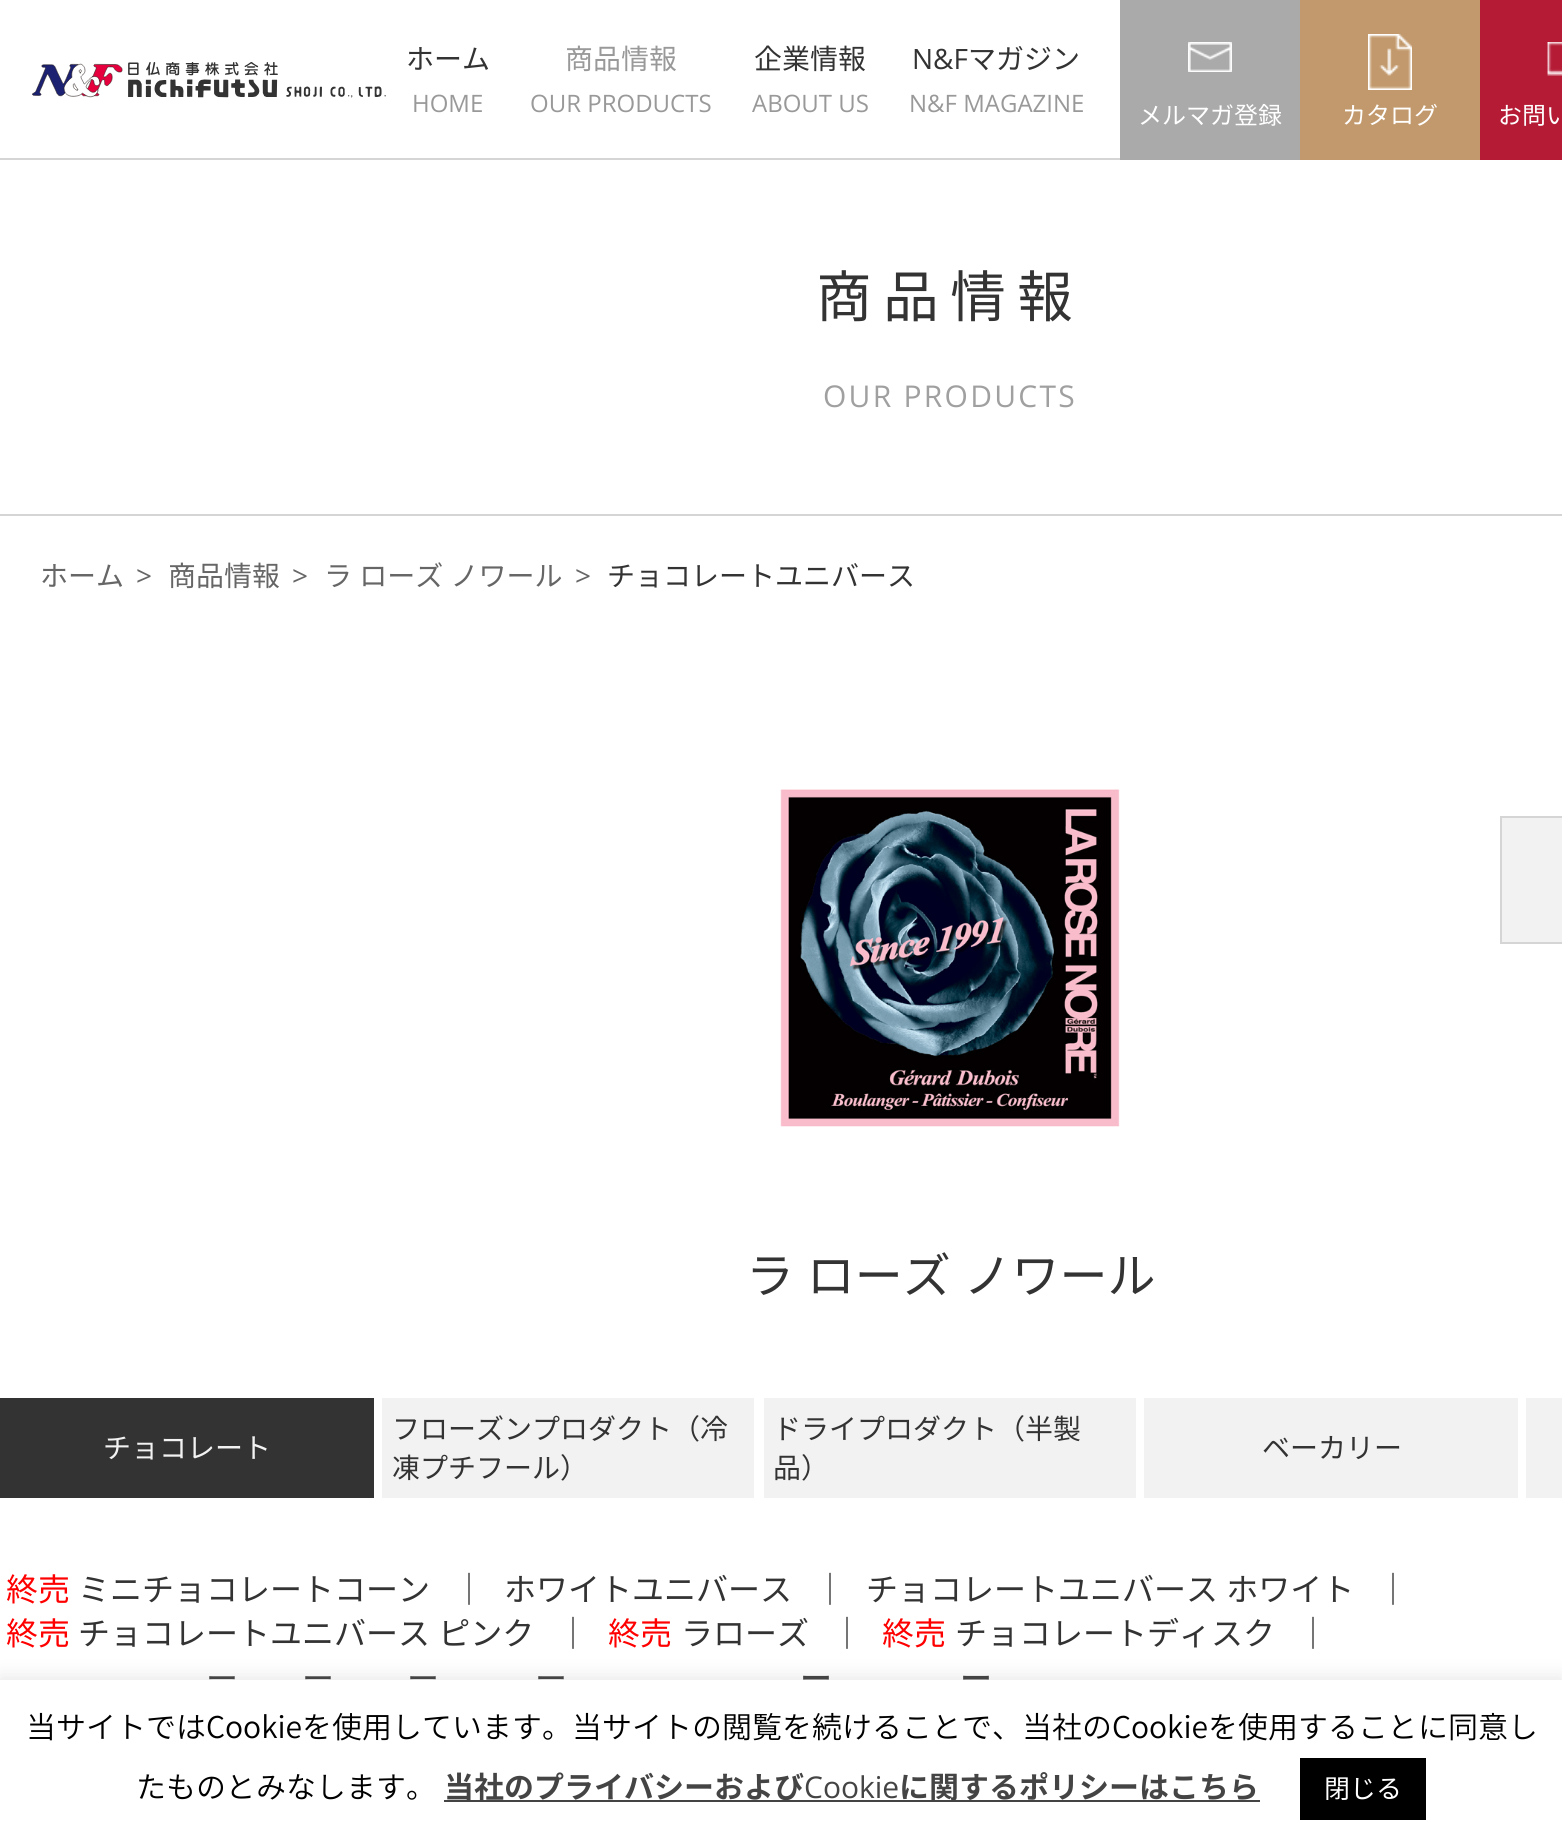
import math
import cairocffi as cairo

surface = cairo.ImageSurface(cairo.FORMAT_RGB24, 1562, 1843)
cr = cairo.Context(surface)
options = cairo.FontOptions()
options.set_hint_metrics(cairo.HINT_METRICS_OFF)
options.set_hint_style(cairo.HINT_STYLE_NONE)
cr.set_font_options(options)
cr.set_miter_limit(4)


def use_color(code):
    cr.set_source_rgb(*(v / 255 for v in bytes.fromhex(code[-6:])))


def spaced_text(x, y, s, letter, word):
    cr.move_to(x, y)
    for ch in s:
        cr.show_text(ch)
        cr.rel_move_to(letter + word * (ch == ' '), 0)


def round_rect(x, y, w, h, r):
    cr.new_sub_path()
    for i, (u, v) in enumerate([(x + w - r, y + h - r), (x + r, y + h - r), (x + r, y + r), (x + w - r, y + r)]):
        cr.arc(u, v, r, i * math.pi / 2, (i + 1) * math.pi / 2)
    cr.close_path()


def shadow(x, y, w, h, r, blur, alpha):
    cr.push_group_with_content(cairo.CONTENT_ALPHA)
    cr.set_operator(cairo.OPERATOR_SOURCE)
    for i in range(15, -16, -2):
        e = blur * i / 6
        if min(w, h) + 2 * e > 0:
            cr.set_source_rgba(0, 0, 0, alpha * math.erfc((i - 1) / 8.5) / 2)
            round_rect(x - e, y - e, w + 2 * e, h + 2 * e, max(0, min(r + e + blur * .6, min(w, h) / 2 + e)))
            cr.fill()
    cr.mask(cr.pop_group())


def picture(path, x, y, w, h):
    cr.save()
    cr.set_source_surface(cairo.ImageSurface.create_from_png(path), x, y)
    cr.rectangle(x, y, w, h)
    cr.fill()
    cr.restore()


use_color("#ffffff")
cr.paint()
use_color("#d5d5d5")
cr.rectangle(0, 158, 1120, 2)
cr.fill()
picture("img1.png", 32, 62, 354, 36)
cr.select_font_face("Noto Sans JP")
cr.set_font_size(28)
use_color("#333333")
cr.move_to(406, 69)
cr.show_text("ホーム")
cr.select_font_face("Open Sans")
cr.set_font_size(24)
use_color("#999999")
cr.move_to(412, 112)
cr.show_text("HOME")
cr.select_font_face("Noto Sans JP")
cr.set_font_size(28)
cr.move_to(565, 69)
cr.show_text("商品情報")
cr.select_font_face("Open Sans")
cr.set_font_size(24)
cr.move_to(530, 112)
cr.show_text("OUR PRODUCTS")
cr.select_font_face("Noto Sans JP")
cr.set_font_size(28)
use_color("#333333")
cr.move_to(754, 69)
cr.show_text("企業情報")
cr.select_font_face("Open Sans")
cr.set_font_size(24)
use_color("#999999")
cr.move_to(752, 112)
cr.show_text("ABOUT US")
cr.set_font_size(28)
use_color("#333333")
cr.move_to(912, 69)
cr.show_text("N&F")
cr.select_font_face("Noto Sans JP")
cr.move_to(968, 69)
cr.show_text("マガジン")
cr.select_font_face("Open Sans")
cr.set_font_size(24)
use_color("#999999")
cr.move_to(909, 112)
cr.show_text("N&F MAGAZINE")
use_color("#aaaaaa")
cr.rectangle(1120, 0, 180, 160)
cr.fill()
picture("img2.png", 1188, 42, 44, 30)
cr.select_font_face("Noto Sans JP")
use_color("#ffffff")
cr.move_to(1138, 124)
cr.show_text("メルマガ登録")
use_color("#c2996c")
cr.rectangle(1300, 0, 180, 160)
cr.fill()
picture("img3.png", 1368, 34, 44, 56)
use_color("#ffffff")
cr.move_to(1342, 124)
cr.show_text("カタログ")
use_color("#b51b35")
cr.rectangle(1480, 0, 82, 160)
cr.fill()
picture("img4.png", 1547, 42, 15, 34)
use_color("#ffffff")
cr.move_to(1498, 124)
cr.show_text("お問い")
use_color("#d5d5d5")
cr.rectangle(0, 514, 1562, 2)
cr.fill()
cr.set_font_size(56)
use_color("#333333")
spaced_text(816, 317, "商品情報", 11, 0)
cr.select_font_face("Open Sans")
cr.set_font_size(30)
use_color("#a0a0a0")
spaced_text(823, 407, "OUR PRODUCTS", 2.25, 0)
cr.select_font_face("Noto Sans JP")
cr.set_font_size(28)
use_color("#666666")
cr.move_to(40, 586)
cr.show_text("ホーム")
cr.select_font_face("Open Sans")
cr.move_to(136, 586)
cr.show_text(">")
cr.select_font_face("Noto Sans JP")
cr.move_to(168, 586)
cr.show_text("商品情報")
cr.select_font_face("Open Sans")
cr.move_to(292, 586)
cr.show_text(">")
cr.select_font_face("Noto Sans JP")
spaced_text(324, 586, "ラ ローズ ノワール", 0, 1)
cr.select_font_face("Open Sans")
cr.move_to(575, 586)
cr.show_text(">")
cr.select_font_face("Noto Sans JP")
use_color("#333333")
cr.move_to(607, 586)
cr.show_text("チョコレートユニバース")
picture("img5.png", 780, 789, 340, 338)
use_color("#f2f2f2")
cr.rectangle(1501, 817, 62, 126)
cr.fill_preserve()
use_color("#d5d5d5")
cr.stroke()
cr.set_font_size(48)
use_color("#333333")
spaced_text(746, 1293, "ラ ローズ ノワール", 0, 2)
cr.rectangle(0, 1398, 374, 100)
cr.fill()
cr.set_font_size(28)
use_color("#f2f2f2")
cr.move_to(103, 1458)
cr.show_text("チョコレート")
cr.rectangle(382, 1398, 372, 100)
cr.fill()
use_color("#333333")
cr.move_to(392, 1439)
cr.show_text("フローズンプロダクト（冷")
cr.move_to(392, 1478)
cr.show_text("凍プチフール）")
use_color("#f2f2f2")
cr.rectangle(764, 1398, 372, 100)
cr.fill()
use_color("#333333")
cr.move_to(773, 1439)
cr.show_text("ドライプロダクト（半製")
cr.move_to(773, 1478)
cr.show_text("品）")
use_color("#f2f2f2")
cr.rectangle(1144, 1398, 374, 100)
cr.fill()
use_color("#333333")
cr.move_to(1262, 1458)
cr.show_text("ベーカリー")
use_color("#f2f2f2")
cr.rectangle(1526, 1398, 36, 100)
cr.fill()
cr.set_font_size(32)
use_color("#ff0000")
cr.move_to(6, 1601)
cr.show_text("終売")
use_color("#333333")
cr.move_to(78, 1601)
cr.show_text("ミニチョコレートコーン")
cr.move_to(453, 1601)
cr.show_text("｜")
cr.move_to(504, 1601)
cr.show_text("ホワイトユニバース")
cr.move_to(814, 1601)
cr.show_text("｜")
spaced_text(866, 1601, "チョコレートユニバース ホワイト", 0, 1)
cr.move_to(1377, 1601)
cr.show_text("｜")
use_color("#ff0000")
cr.move_to(6, 1645)
cr.show_text("終売")
use_color("#333333")
spaced_text(78, 1645, "チョコレートユニバース ピンク", 0, 1)
cr.move_to(557, 1645)
cr.show_text("｜")
use_color("#ff0000")
cr.move_to(608, 1645)
cr.show_text("終売")
use_color("#333333")
cr.move_to(681, 1645)
cr.show_text("ラローズ")
cr.move_to(831, 1645)
cr.show_text("｜")
use_color("#ff0000")
cr.move_to(882, 1645)
cr.show_text("終売")
use_color("#333333")
cr.move_to(955, 1645)
cr.show_text("チョコレートディスク")
cr.move_to(1297, 1645)
cr.show_text("｜")
spaced_text(206, 1690, "ー", 0, 1)
spaced_text(302, 1690, "ー", 0, 1)
spaced_text(407, 1690, "ー", 0, 1)
spaced_text(535, 1690, "ー", 0, 1)
cr.select_font_face("Noto Sans JP Medium")
cr.move_to(800, 1690)
cr.show_text("ー")
cr.move_to(960, 1690)
cr.show_text("ー")
use_color("#acabab")
shadow(0, 1678, 1562, 164, 0, 10, 0.3)
use_color("#ffffff")
cr.rectangle(0, 1680, 1562, 163)
cr.fill()
cr.select_font_face("Noto Sans JP Light")
cr.set_font_size(30)
use_color("#000000")
cr.move_to(26, 1738)
cr.show_text("当サイトではCookieを使用しています。当サイトの閲覧を続けることで、当社のCookieを使用することに同意し")
cr.move_to(136, 1798)
cr.show_text("たものとみなします。")
use_color("#444444")
cr.rectangle(444, 1800, 816, 2)
cr.fill()
cr.select_font_face("Noto Sans JP", cairo.FONT_SLANT_NORMAL, cairo.FONT_WEIGHT_BOLD)
cr.move_to(444, 1798)
cr.show_text("当社のプライバシーおよび")
cr.select_font_face("Open Sans")
cr.move_to(804, 1798)
cr.show_text("Cookie")
cr.select_font_face("Noto Sans JP", cairo.FONT_SLANT_NORMAL, cairo.FONT_WEIGHT_BOLD)
cr.move_to(899, 1798)
cr.show_text("に関するポリシーはこちら")
use_color("#000000")
cr.rectangle(1300, 1758, 126, 62)
cr.fill()
cr.select_font_face("Noto Sans JP")
cr.set_font_size(26)
use_color("#ffffff")
cr.move_to(1324, 1798)
cr.show_text("閉じる")
surface.write_to_png("result.png")
